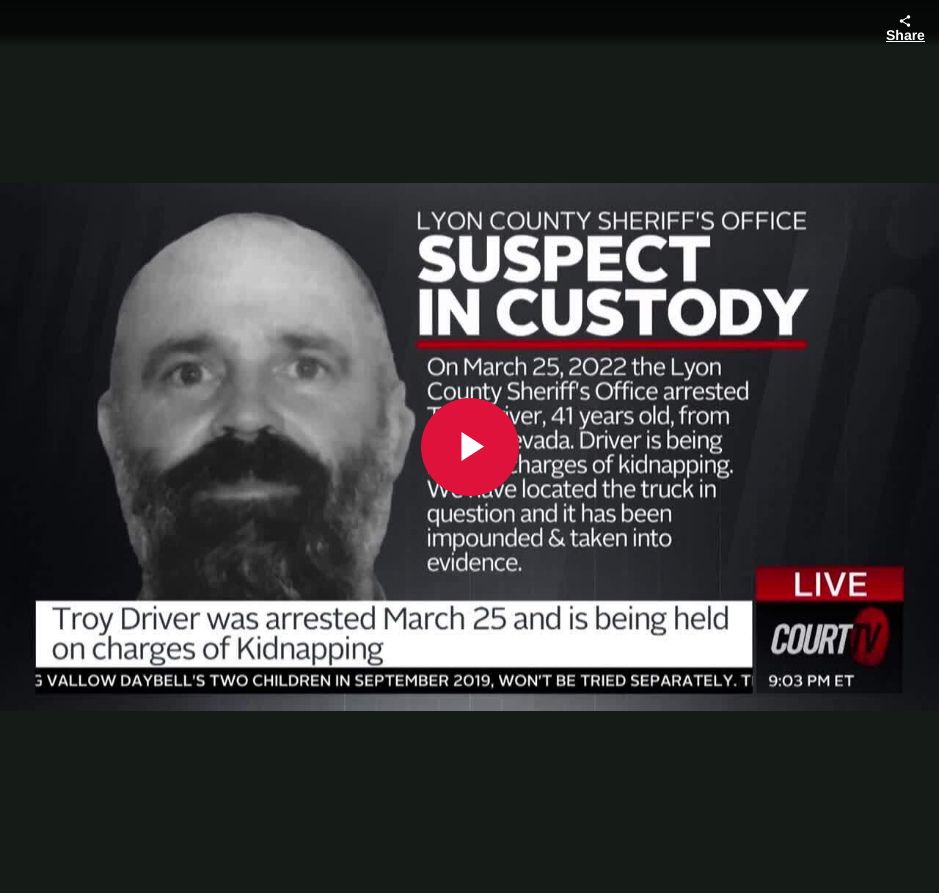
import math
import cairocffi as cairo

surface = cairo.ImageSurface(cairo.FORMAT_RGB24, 939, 893)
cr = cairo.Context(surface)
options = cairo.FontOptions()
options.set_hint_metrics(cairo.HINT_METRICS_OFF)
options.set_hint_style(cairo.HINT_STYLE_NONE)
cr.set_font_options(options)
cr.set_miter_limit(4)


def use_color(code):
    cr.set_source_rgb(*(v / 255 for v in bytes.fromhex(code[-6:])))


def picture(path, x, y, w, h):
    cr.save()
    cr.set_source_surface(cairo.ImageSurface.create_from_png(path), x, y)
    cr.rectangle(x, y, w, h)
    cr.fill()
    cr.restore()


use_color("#151b17")
cr.paint()
gradient = cairo.LinearGradient(470, 0, 470, 47)
gradient.add_color_stop_rgba(0, 0.016, 0.02, 0.02, 1)
gradient.add_color_stop_rgba(0.3, 0.024, 0.031, 0.027, 1)
gradient.add_color_stop_rgba(0.7, 0.024, 0.031, 0.027, 1)
gradient.add_color_stop_rgba(1, 0.082, 0.106, 0.09, 1)
cr.set_source(gradient)
cr.rectangle(0, 0, 939, 45)
cr.fill()
picture("img1.png", 899, 15, 12, 12)
cr.select_font_face("Liberation Sans", cairo.FONT_SLANT_NORMAL, cairo.FONT_WEIGHT_BOLD)
cr.set_font_size(14)
use_color("#ffffff")
cr.move_to(886, 40)
cr.show_text("Share")
cr.rectangle(886, 41, 39, 1)
cr.fill()
picture("img2.png", 0, 183, 939, 528)
use_color("#de123b")
cr.arc(470, 447, 49, 0, 2 * math.pi)
cr.fill()
use_color("#ffffff")
cr.new_path()
cr.move_to(461.5, 432)
cr.line_to(461.5, 461)
cr.line_to(484, 446.5)
cr.close_path()
cr.fill()
surface.write_to_png("result.png")
